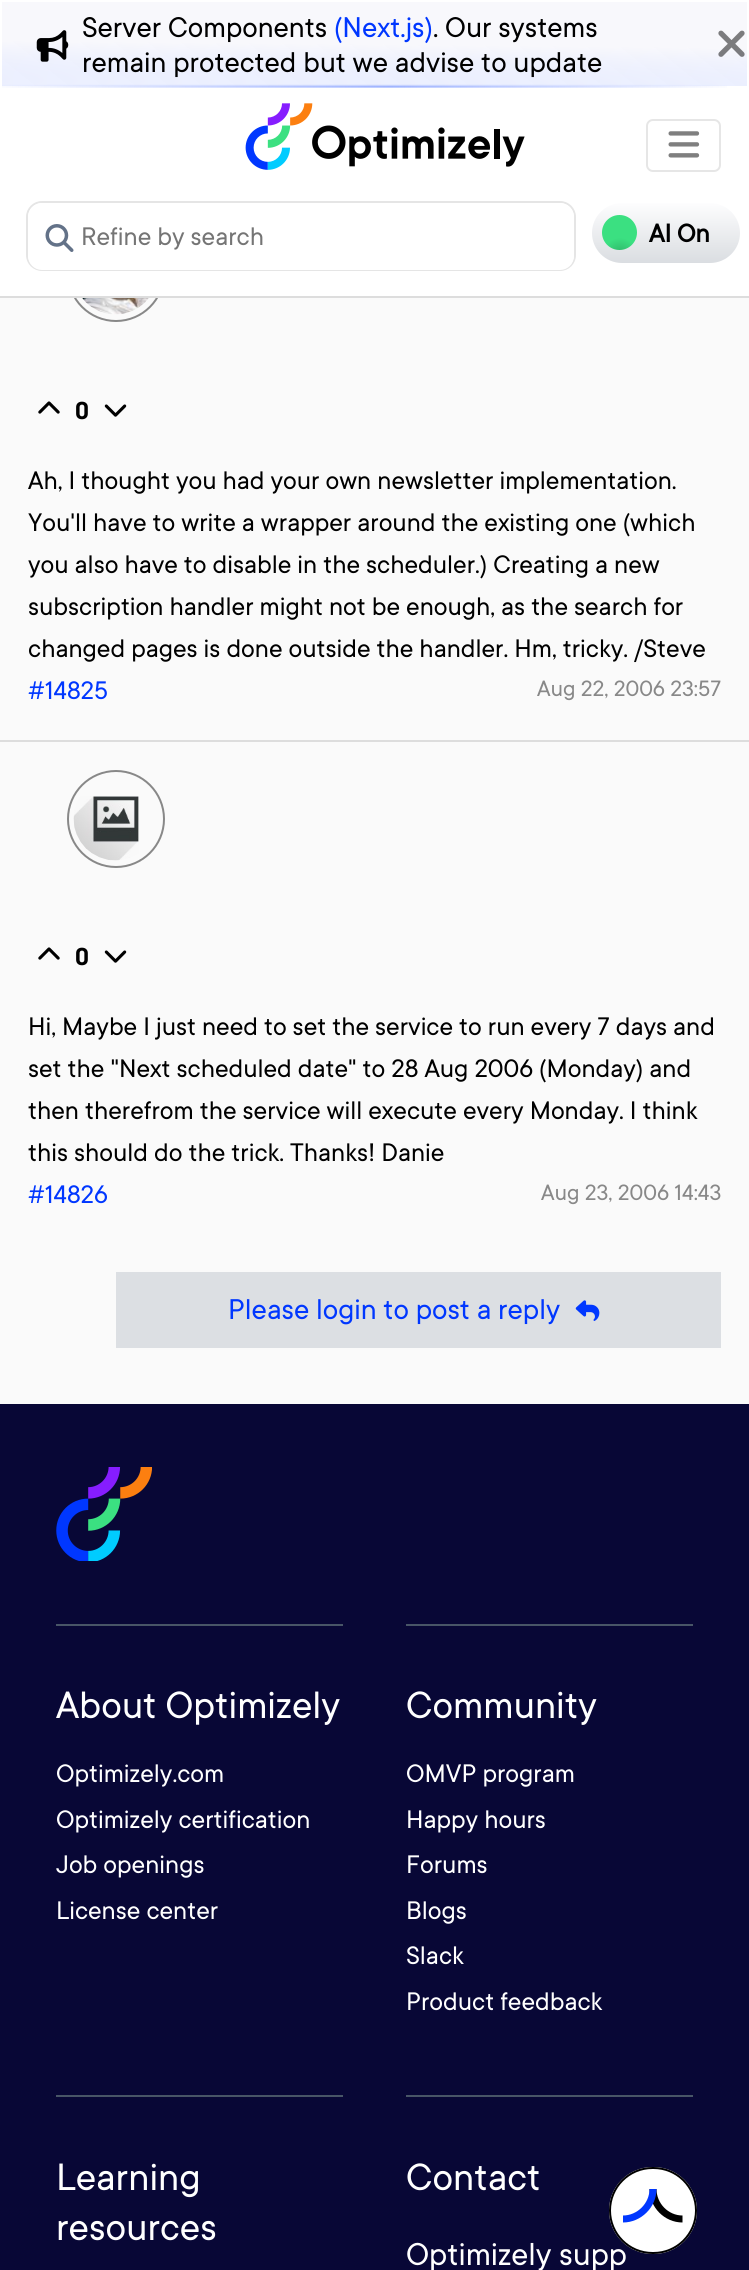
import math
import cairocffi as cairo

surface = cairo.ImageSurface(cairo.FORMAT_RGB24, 749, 2270)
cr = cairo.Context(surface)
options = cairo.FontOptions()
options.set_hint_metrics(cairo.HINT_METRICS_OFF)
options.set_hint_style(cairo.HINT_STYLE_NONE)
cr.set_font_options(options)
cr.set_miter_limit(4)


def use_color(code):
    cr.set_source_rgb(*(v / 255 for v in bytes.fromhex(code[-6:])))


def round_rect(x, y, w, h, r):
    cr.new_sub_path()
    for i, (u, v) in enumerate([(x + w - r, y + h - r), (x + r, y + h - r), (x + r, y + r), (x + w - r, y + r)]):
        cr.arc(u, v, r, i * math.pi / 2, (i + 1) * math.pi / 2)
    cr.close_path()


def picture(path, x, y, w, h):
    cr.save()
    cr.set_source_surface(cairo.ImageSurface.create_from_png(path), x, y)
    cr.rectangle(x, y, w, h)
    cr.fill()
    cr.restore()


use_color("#fafafa")
cr.paint()
cr.arc(116, 273, 48, 0, 2 * math.pi)
use_color("#888888")
cr.stroke()
use_color("#ffffff")
cr.rectangle(0, 0, 749, 296)
cr.fill()
picture("img1.png", 2, 84, 725, 4)
gradient = cairo.LinearGradient(375, 1.7, 374, 103)
gradient.add_color_stop_rgba(0.42, 0.973, 0.973, 0.988, 1)
gradient.add_color_stop_rgba(1, 0.8, 0.843, 1, 0.3)
cr.set_source(gradient)
cr.rectangle(2, 2, 745, 84)
cr.fill()
picture("img2.png", 36, 30, 33, 32)
cr.select_font_face("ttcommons")
cr.set_font_size(31.5)
use_color("#000000")
cr.move_to(82, 37)
cr.show_text("Server Components")
use_color("#0037ff")
cr.move_to(334, 37)
cr.show_text("(Next.js)")
use_color("#000000")
cr.move_to(433, 37)
cr.show_text(". Our systems")
cr.move_to(82, 72)
cr.show_text("remain protected but we advise to update")
picture("img3.png", 718, 30, 27, 27)
use_color("#dddddd")
cr.rectangle(0, 296, 749, 2)
cr.fill()
picture("img4.png", 245, 103, 280, 67)
round_rect(647, 120, 73, 51, 6)
use_color("#e6e6e6")
cr.stroke()
picture("img5.png", 668, 131, 32, 27)
round_rect(27, 202, 548, 68, 15)
use_color("#e5e5e5")
cr.stroke()
use_color("#ffffff")
round_rect(28, 203, 546, 67, 14)
cr.fill()
picture("img6.png", 45, 224, 29, 28)
cr.set_font_size(28)
use_color("#757575")
cr.move_to(81, 245)
cr.show_text("Refine by search")
gradient = cairo.LinearGradient(666, 203, 666, 263)
gradient.add_color_stop_rgba(0, 0.992, 0.992, 0.996, 1)
gradient.add_color_stop_rgba(1, 0.855, 0.867, 0.882, 1)
cr.set_source(gradient)
round_rect(592, 203, 148, 60, 30)
cr.fill()
gradient = cairo.RadialGradient(620, 255, 0, 620, 255, 39)
gradient.add_color_stop_rgba(0, 0.184, 0.702, 0.404, 1)
gradient.add_color_stop_rgba(0.44, 0.231, 0.878, 0.506, 1)
cr.set_source(gradient)
cr.arc(619.5, 232.5, 17.5, 0, 2 * math.pi)
cr.fill()
cr.select_font_face("ttcommons", cairo.FONT_SLANT_NORMAL, cairo.FONT_WEIGHT_BOLD)
use_color("#000000")
cr.move_to(649, 242)
cr.show_text("AI On")
picture("img7.png", 82, 298, 67, 17)
picture("img8.png", 38, 401, 22, 13)
cr.select_font_face("Barlow", cairo.FONT_SLANT_NORMAL, cairo.FONT_WEIGHT_BOLD)
cr.set_font_size(24.5)
cr.move_to(75, 419)
cr.show_text("0")
picture("img9.png", 104, 404, 23, 13)
cr.select_font_face("ttcommons")
cr.set_font_size(28)
cr.move_to(28, 489)
cr.show_text("Ah, I thought you had your own newsletter implementation.")
cr.move_to(28, 531)
cr.show_text("You'll have to write a wrapper around the existing one (which")
cr.move_to(28, 573)
cr.show_text("you also have to disable in the scheduler.) Creating a new")
cr.move_to(28, 615)
cr.show_text("subscription handler might not be enough, as the search for")
cr.move_to(28, 657)
cr.show_text("changed pages is done outside the handler. Hm, tricky. /Steve")
use_color("#0037ff")
cr.move_to(28, 699)
cr.show_text("#14825")
cr.set_font_size(24.5)
use_color("#888888")
cr.move_to(537, 696)
cr.show_text("Aug 22, 2006 23:57")
use_color("#dddddd")
cr.rectangle(0, 740, 749, 2)
cr.fill()
cr.arc(116, 819, 48, 0, 2 * math.pi)
use_color("#888888")
cr.stroke()
picture("img10.png", 73, 796, 66, 65)
picture("img8.png", 38, 947, 22, 13)
cr.select_font_face("Barlow", cairo.FONT_SLANT_NORMAL, cairo.FONT_WEIGHT_BOLD)
use_color("#000000")
cr.move_to(75, 965)
cr.show_text("0")
picture("img9.png", 104, 950, 23, 13)
cr.select_font_face("ttcommons")
cr.set_font_size(28)
cr.move_to(28, 1035)
cr.show_text("Hi, Maybe I just need to set the service to run every 7 days and")
cr.move_to(28, 1077)
cr.show_text("set the \"Next scheduled date\" to 28 Aug 2006 (Monday) and")
cr.move_to(28, 1119)
cr.show_text("then therefrom the service will execute every Monday. I think")
cr.move_to(28, 1161)
cr.show_text("this should do the trick. Thanks! Danie")
use_color("#0037ff")
cr.move_to(28, 1203)
cr.show_text("#14826")
cr.set_font_size(24.5)
use_color("#888888")
cr.move_to(541, 1200)
cr.show_text("Aug 23, 2006 14:43")
use_color("#dcdfe3")
cr.rectangle(116, 1272, 605, 76)
cr.fill()
cr.set_font_size(31.5)
use_color("#0037ff")
cr.move_to(228, 1319)
cr.show_text("Please login to post a reply")
picture("img11.png", 575, 1300, 25, 21)
use_color("#080736")
cr.rectangle(0, 1404, 749, 866)
cr.fill()
picture("img12.png", 56, 1467, 96, 94)
use_color("#485567")
cr.rectangle(56, 1624, 287, 2)
cr.fill()
cr.set_font_size(42)
use_color("#ffffff")
cr.move_to(56, 1718)
cr.show_text("About Optimizely")
cr.set_font_size(28)
cr.move_to(56, 1782)
cr.show_text("Optimizely.com")
cr.move_to(56, 1828)
cr.show_text("Optimizely certification")
cr.move_to(56, 1873)
cr.show_text("Job openings")
cr.move_to(56, 1919)
cr.show_text("License center")
use_color("#485567")
cr.rectangle(406, 1624, 287, 2)
cr.fill()
cr.set_font_size(42)
use_color("#ffffff")
cr.move_to(406, 1718)
cr.show_text("Community")
cr.set_font_size(28)
cr.move_to(406, 1782)
cr.show_text("OMVP program")
cr.move_to(406, 1828)
cr.show_text("Happy hours")
cr.move_to(406, 1873)
cr.show_text("Forums")
cr.move_to(406, 1919)
cr.show_text("Blogs")
cr.move_to(406, 1964)
cr.show_text("Slack")
cr.move_to(406, 2010)
cr.show_text("Product feedback")
use_color("#485567")
cr.rectangle(56, 2095, 287, 2)
cr.fill()
cr.set_font_size(42)
use_color("#ffffff")
cr.move_to(56, 2190)
cr.show_text("Learning")
cr.move_to(56, 2240)
cr.show_text("resources")
use_color("#485567")
cr.rectangle(406, 2095, 287, 2)
cr.fill()
use_color("#ffffff")
cr.move_to(406, 2190)
cr.show_text("Contact")
cr.set_font_size(35)
cr.move_to(406, 2265)
cr.show_text("Optimizely supp")
round_rect(609, 2167, 88, 87, 43.5)
cr.fill()
cr.new_path()
cr.move_to(682.5, 2219)
cr.curve_to(666.5, 2219, 653, 2205.5, 653, 2189)
use_color("#000000")
cr.set_line_width(7)
cr.stroke()
cr.new_path()
cr.move_to(653, 2189)
cr.curve_to(653, 2205.5, 639, 2219, 623, 2219)
use_color("#0037ff")
cr.stroke()
round_rect(610, 2168, 86, 85, 42.5)
use_color("#000000")
cr.set_line_width(2)
cr.stroke()
surface.write_to_png("result.png")
